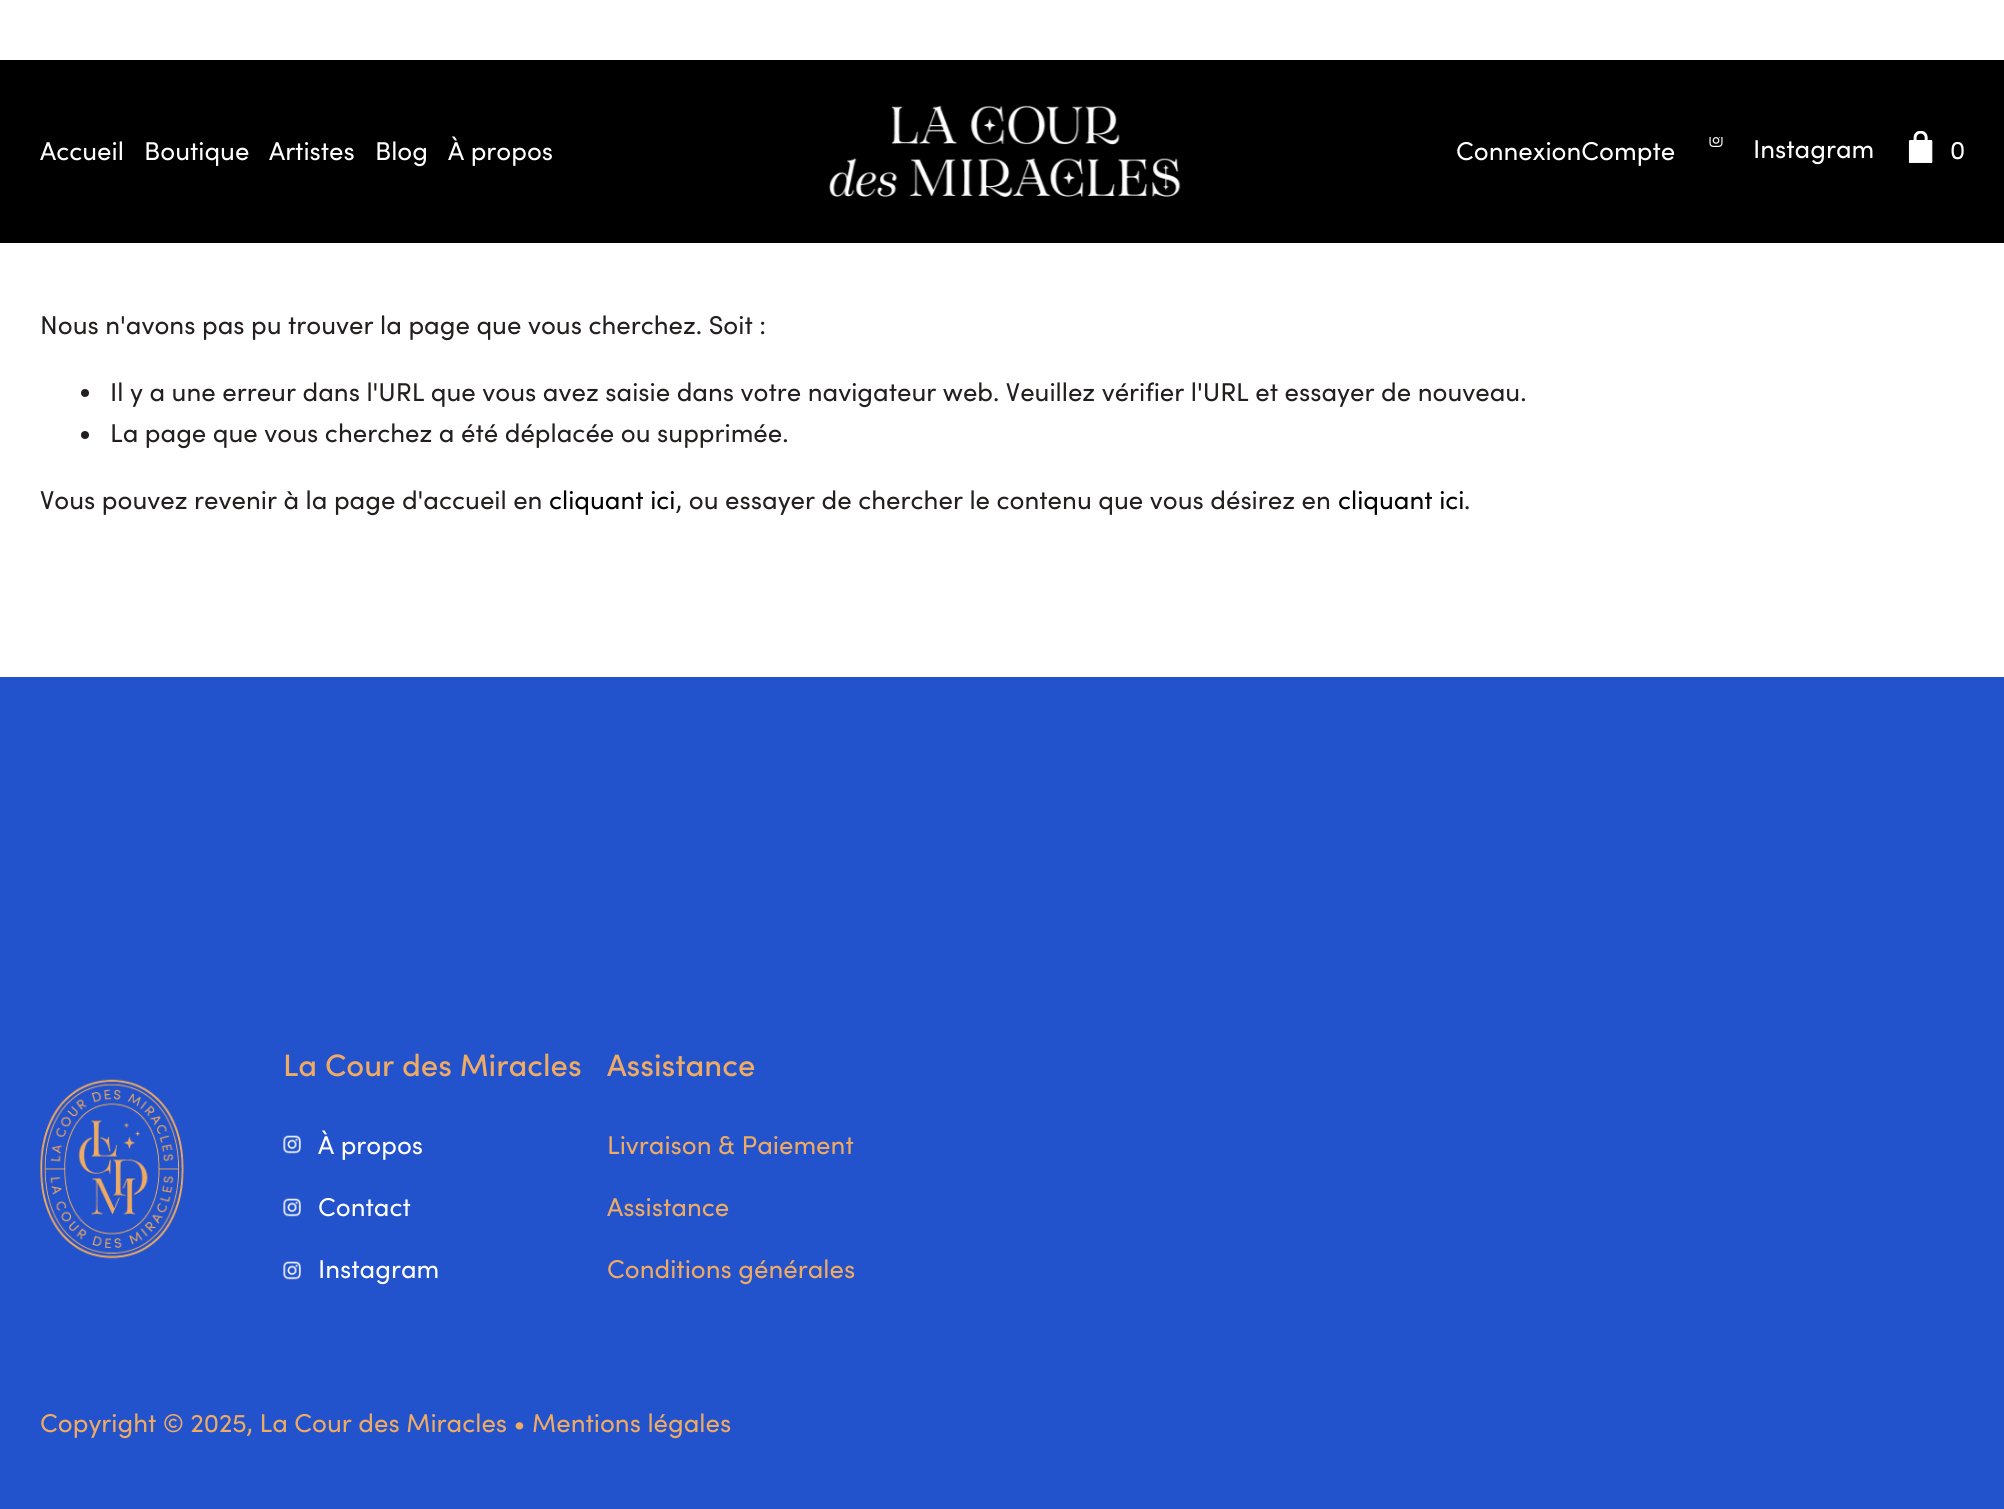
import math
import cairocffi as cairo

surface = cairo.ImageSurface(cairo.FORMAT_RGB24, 2004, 1509)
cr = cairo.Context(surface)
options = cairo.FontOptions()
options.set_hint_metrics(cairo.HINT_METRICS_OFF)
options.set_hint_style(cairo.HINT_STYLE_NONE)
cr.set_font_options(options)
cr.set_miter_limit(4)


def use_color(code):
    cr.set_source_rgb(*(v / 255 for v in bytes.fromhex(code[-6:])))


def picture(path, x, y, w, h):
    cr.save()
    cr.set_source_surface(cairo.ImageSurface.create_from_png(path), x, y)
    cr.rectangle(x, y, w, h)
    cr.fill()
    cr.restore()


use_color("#ffffff")
cr.paint()
use_color("#000000")
cr.rectangle(0, 60, 2004, 183)
cr.fill()
cr.select_font_face("Sofia")
cr.set_font_size(25.8)
use_color("#ffffff")
cr.move_to(40, 160)
cr.show_text("Accueil")
cr.move_to(144, 160)
cr.show_text("Boutique")
cr.move_to(269, 160)
cr.show_text("Artistes")
cr.move_to(375, 160)
cr.show_text("Blog")
cr.move_to(448, 160)
cr.show_text("À propos")
picture("img1.png", 829, 105, 352, 92)
cr.move_to(1456, 160)
cr.show_text("ConnexionCompte")
picture("img2.png", 1709, 137, 14, 10)
cr.move_to(1753, 158)
cr.show_text("Instagram")
picture("img3.png", 1908, 131, 25, 32)
cr.move_to(1950, 159)
cr.show_text("0")
use_color("#231f1f")
cr.move_to(40, 334)
cr.show_text("Nous n'avons pas pu trouver la page que vous cherchez. Soit :")
cr.new_path()
cr.arc(85, 393, 4, 0, 2 * math.pi)
cr.fill()
cr.move_to(110, 401)
cr.show_text("Il y a une erreur dans l'URL que vous avez saisie dans votre navigateur web. Veuillez vérifier l'URL et essayer de nouveau.")
cr.new_path()
cr.arc(85, 435, 4, 0, 2 * math.pi)
cr.fill()
cr.move_to(110, 442)
cr.show_text("La page que vous cherchez a été déplacée ou supprimée.")
cr.move_to(40, 509)
cr.show_text("Vous pouvez revenir à la page d'accueil en")
use_color("#000000")
cr.move_to(549, 509)
cr.show_text("cliquant ici")
use_color("#231f1f")
cr.move_to(676, 509)
cr.show_text(", ou essayer de chercher le contenu que vous désirez en")
use_color("#000000")
cr.move_to(1338, 509)
cr.show_text("cliquant ici")
use_color("#231f1f")
cr.move_to(1464, 509)
cr.show_text(".")
use_color("#2353cc")
cr.rectangle(0, 677, 2004, 832)
cr.fill()
picture("img4.png", 40, 1079, 144, 180)
cr.select_font_face("Sofia Medium")
cr.set_font_size(31)
use_color("#efaa63")
cr.move_to(283, 1076)
cr.show_text("La Cour des Miracles")
picture("img5.png", 283, 1135, 18, 19)
cr.select_font_face("Sofia")
cr.set_font_size(25.8)
use_color("#ffffff")
cr.move_to(318, 1154)
cr.show_text("À propos")
picture("img5.png", 283, 1198, 18, 19)
cr.move_to(318, 1216)
cr.show_text("Contact")
picture("img5.png", 283, 1261, 18, 19)
cr.move_to(318, 1278)
cr.show_text("Instagram")
cr.select_font_face("Sofia Medium")
cr.set_font_size(31)
use_color("#efaa63")
cr.move_to(607, 1076)
cr.show_text("Assistance")
cr.select_font_face("Sofia")
cr.set_font_size(25.8)
cr.move_to(607, 1154)
cr.show_text("Livraison & Paiement")
cr.move_to(607, 1216)
cr.show_text("Assistance")
cr.move_to(607, 1278)
cr.show_text("Conditions générales")
cr.move_to(40, 1432)
cr.show_text("Copyright © 2025, La Cour des Miracles • Mentions légales")
surface.write_to_png("result.png")
